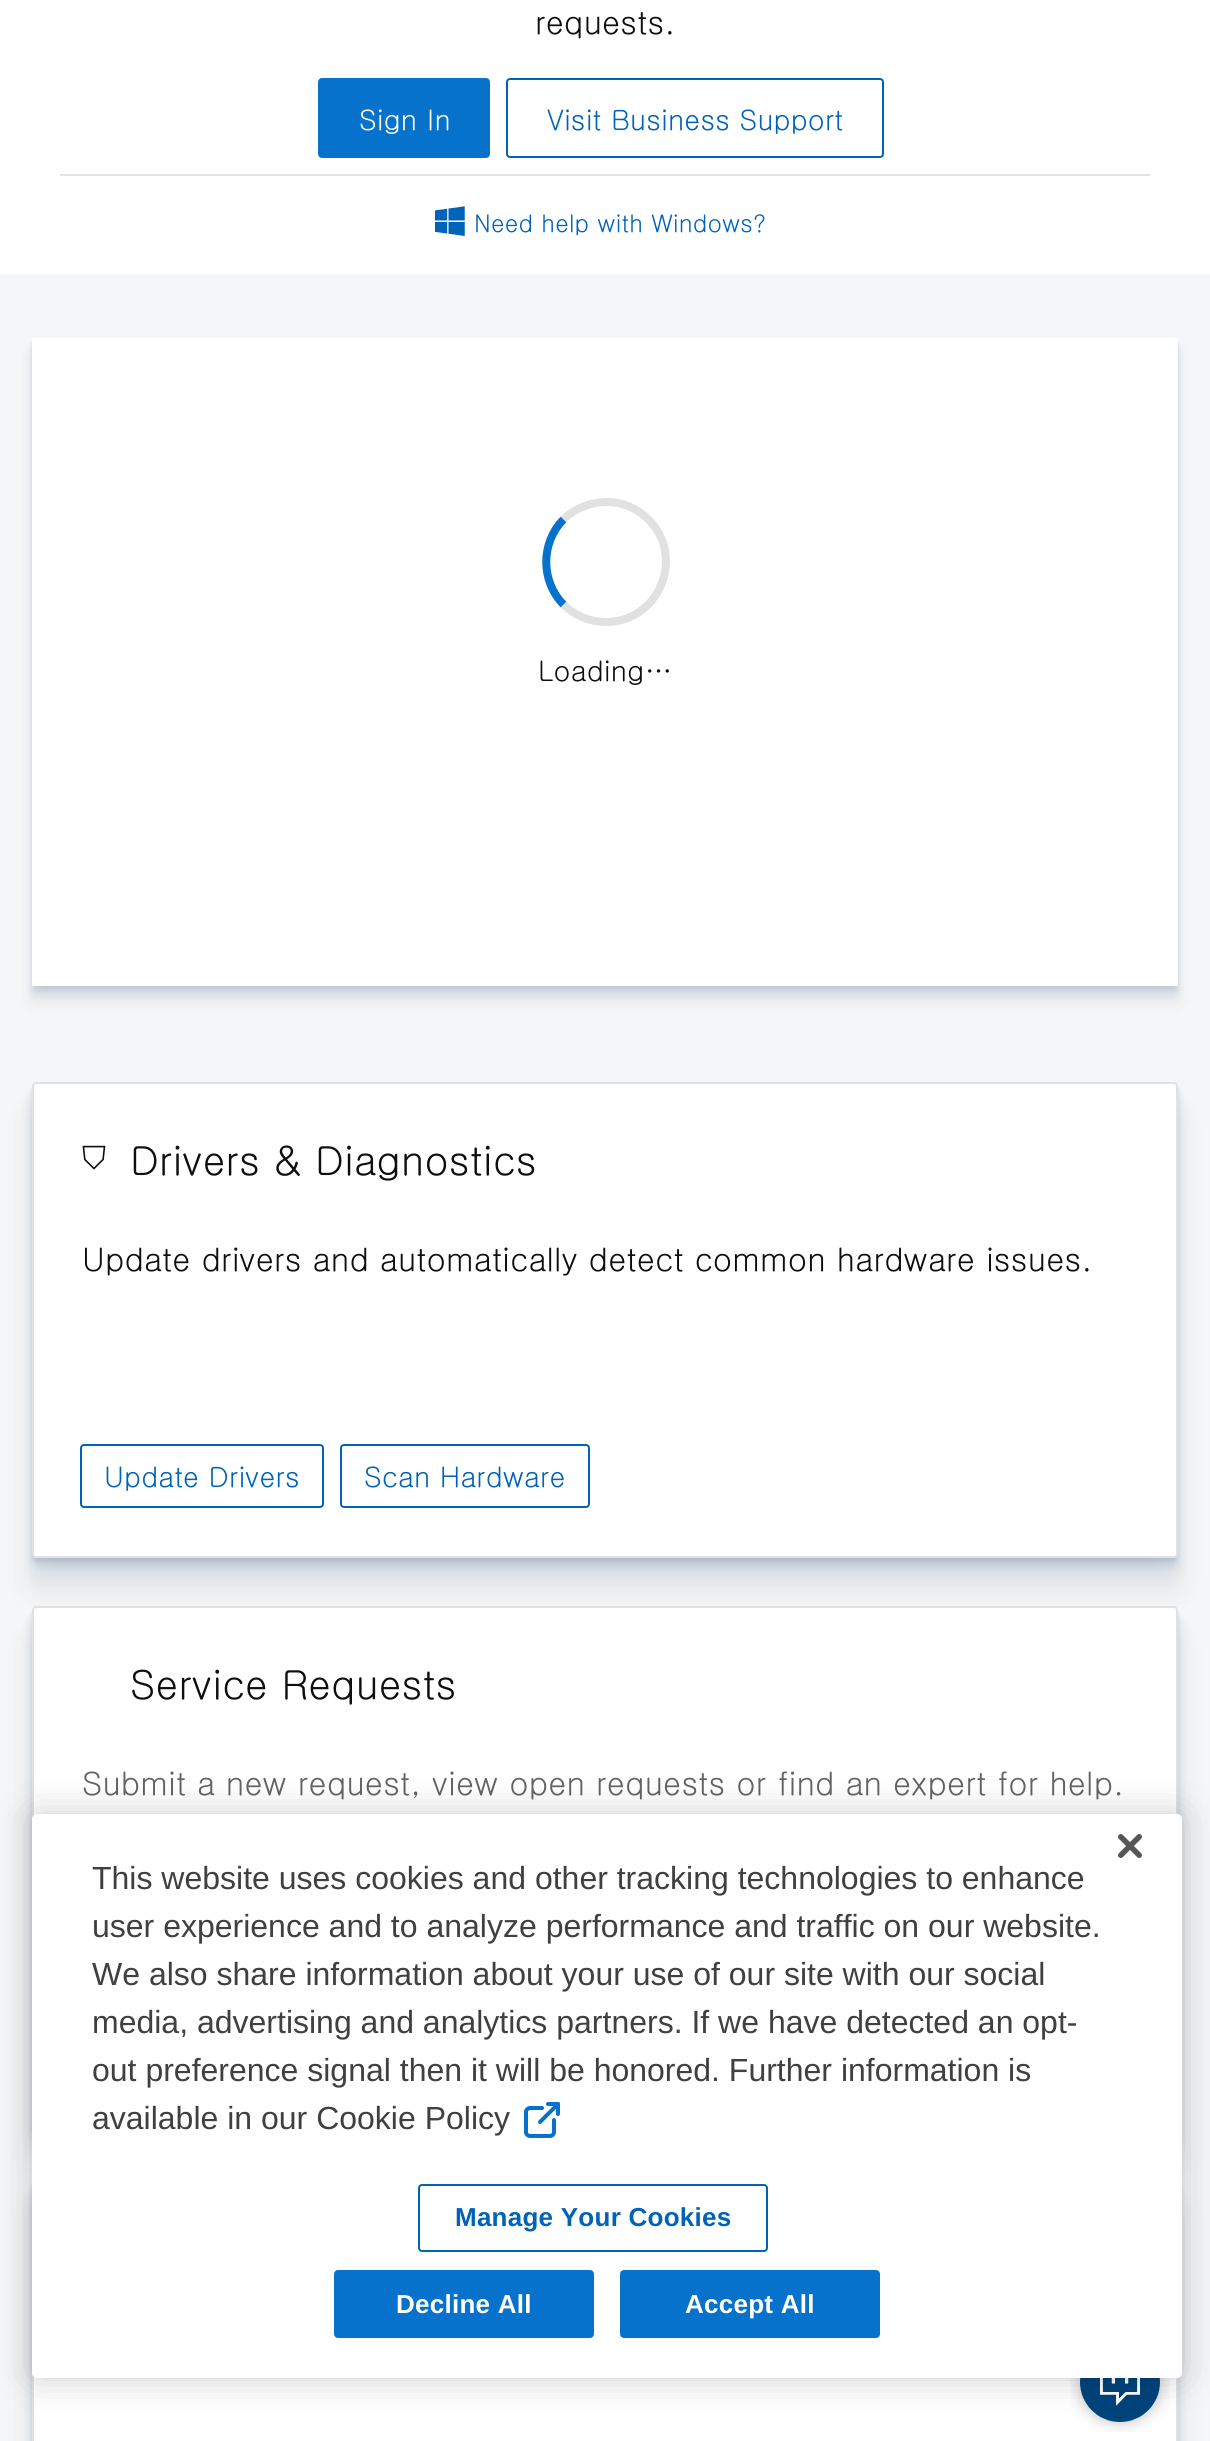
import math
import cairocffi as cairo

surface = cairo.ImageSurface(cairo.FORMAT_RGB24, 1210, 2441)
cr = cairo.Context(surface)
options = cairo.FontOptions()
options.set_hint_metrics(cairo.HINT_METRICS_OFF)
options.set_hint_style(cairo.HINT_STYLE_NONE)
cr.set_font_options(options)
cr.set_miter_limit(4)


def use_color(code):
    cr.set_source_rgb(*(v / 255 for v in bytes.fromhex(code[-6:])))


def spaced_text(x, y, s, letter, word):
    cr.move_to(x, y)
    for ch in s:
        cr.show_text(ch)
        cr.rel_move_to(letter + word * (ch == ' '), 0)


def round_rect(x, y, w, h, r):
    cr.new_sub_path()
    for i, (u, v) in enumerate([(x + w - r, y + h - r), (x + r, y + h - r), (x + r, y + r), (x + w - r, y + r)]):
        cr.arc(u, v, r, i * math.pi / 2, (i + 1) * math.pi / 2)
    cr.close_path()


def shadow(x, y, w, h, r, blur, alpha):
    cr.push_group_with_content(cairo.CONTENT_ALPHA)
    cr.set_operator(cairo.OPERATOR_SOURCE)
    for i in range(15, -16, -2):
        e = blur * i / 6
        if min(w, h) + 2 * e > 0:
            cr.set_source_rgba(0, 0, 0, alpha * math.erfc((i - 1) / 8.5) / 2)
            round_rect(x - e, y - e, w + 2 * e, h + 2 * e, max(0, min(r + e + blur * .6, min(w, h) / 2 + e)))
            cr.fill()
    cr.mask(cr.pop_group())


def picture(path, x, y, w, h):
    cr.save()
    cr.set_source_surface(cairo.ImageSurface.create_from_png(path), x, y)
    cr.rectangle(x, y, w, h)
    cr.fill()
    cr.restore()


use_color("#ffffff")
cr.paint()
cr.select_font_face("Gulim")
cr.set_font_size(32)
use_color("#0e0e0e")
spaced_text(535, 34, "requests.", 0.15, 0)
use_color("#0672cb")
round_rect(319, 79, 170, 78, 3)
cr.fill_preserve()
cr.stroke()
cr.set_font_size(28)
use_color("#ffffff")
spaced_text(359, 130, "Sign In", 0.15, 0)
round_rect(507, 79, 376, 78, 3)
use_color("#0063b8")
cr.stroke()
spaced_text(547, 130, "Visit Business Support", 0.15, 0)
use_color("#e1e1e1")
cr.rectangle(60, 174, 1090, 2)
cr.fill()
picture("img1.png", 435, 206, 30, 30)
cr.set_font_size(24)
use_color("#0063b8")
spaced_text(474, 232, "Need help with Windows?", 0.15, 0)
use_color("#f5f6f7")
cr.rectangle(0, 274, 1210, 2167)
cr.fill()
use_color("#002a58")
shadow(32, 354, 1146, 648, 0, 8, 0.08)
shadow(32, 346, 1146, 648, 0, 4, 0.08)
shadow(32, 342, 1146, 648, 0, 2, 0.08)
use_color("#ffffff")
cr.rectangle(32, 338, 1146, 648)
cr.fill()
cr.new_path()
cr.move_to(563.5, 519.5)
cr.curve_to(577.5, 505.5, 598.5, 499.5, 618, 503)
cr.curve_to(629.5, 505.5, 640, 511, 648.5, 519.5)
cr.curve_to(686, 557, 659, 622, 606, 622)
cr.curve_to(590, 622, 574.5, 615.5, 563.5, 604.5)
use_color("#e1e1e1")
cr.set_line_width(8)
cr.stroke()
cr.new_path()
cr.move_to(563.5, 604.5)
cr.curve_to(540.5, 581.5, 540.5, 542.5, 563.5, 519.5)
use_color("#0672cb")
cr.stroke()
cr.set_font_size(28)
use_color("#0e0e0e")
spaced_text(538, 681, "Loading…", 0.25, 0)
use_color("#002a58")
shadow(32, 1114, 1146, 476, 4, 16, 0.08)
shadow(32, 1098, 1146, 476, 4, 8, 0.08)
shadow(32, 1090, 1146, 476, 4, 4, 0.08)
shadow(32, 1086, 1146, 476, 4, 2, 0.08)
use_color("#ffffff")
round_rect(33, 1083, 1144, 474, 3)
cr.fill_preserve()
use_color("#e1e1e1")
cr.set_line_width(2)
cr.stroke()
cr.select_font_face("FreeSans")
cr.set_font_size(32)
use_color("#0e0e0e")
spaced_text(82, 1169, "⛉", 0.15, 0)
cr.select_font_face("Gulim")
cr.set_font_size(40)
spaced_text(130, 1175, "Drivers & Diagnostics", 0.2, 0)
cr.set_font_size(32)
spaced_text(82, 1271, "Update drivers and automatically detect common hardware issues.", 0.15, 0)
round_rect(81, 1445, 242, 62, 3)
use_color("#0063b8")
cr.stroke()
cr.set_font_size(28)
spaced_text(104, 1487, "Update Drivers", 0.15, 0)
round_rect(341, 1445, 248, 62, 3)
cr.stroke()
spaced_text(364, 1487, "Scan Hardware", 0.15, 0)
use_color("#002a58")
shadow(32, 1638, 1146, 524, 4, 16, 0.08)
shadow(32, 1622, 1146, 524, 4, 8, 0.08)
shadow(32, 1614, 1146, 524, 4, 4, 0.08)
shadow(32, 1610, 1146, 524, 4, 2, 0.08)
use_color("#ffffff")
round_rect(33, 1607, 1144, 522, 3)
cr.fill_preserve()
use_color("#e1e1e1")
cr.stroke()
cr.set_font_size(40)
use_color("#0e0e0e")
spaced_text(130, 1699, "Service Requests", 0.2, 0)
cr.set_font_size(32)
use_color("#636363")
spaced_text(82, 1795, "Submit a new request, view open requests or find an expert for help.", 0.15, 0)
use_color("#002a58")
shadow(32, 2210, 1146, 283, 4, 16, 0.08)
shadow(32, 2194, 1146, 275, 4, 8, 0.08)
shadow(32, 2186, 1146, 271, 4, 4, 0.08)
shadow(32, 2182, 1146, 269, 4, 2, 0.08)
use_color("#ffffff")
cr.rectangle(34, 2377, 1142, 64)
cr.fill()
cr.rectangle(33, 2179, 1144, 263)
use_color("#e1e1e1")
cr.stroke()
picture("img4.png", 1070, 2378, 100, 54)
use_color("#000000")
shadow(32, 1814, 1150, 564, 5, 18, 0.2)
use_color("#ffffff")
round_rect(32, 1814, 1150, 564, 5)
cr.fill()
picture("img2.png", 1118, 1834, 24, 24)
cr.select_font_face("Liberation Sans")
use_color("#404040")
cr.move_to(92, 1889)
cr.show_text("This website uses cookies and other tracking technologies to enhance")
cr.move_to(92, 1937)
cr.show_text("user experience and to analyze performance and traffic on our website.")
cr.move_to(92, 1985)
cr.show_text("We also share information about your use of our site with our social")
cr.move_to(92, 2033)
cr.show_text("media, advertising and analytics partners. If we have detected an opt-")
cr.move_to(92, 2081)
cr.show_text("out preference signal then it will be honored. Further information is")
cr.move_to(92, 2129)
cr.show_text("available in our Cookie Policy")
picture("img3.png", 524, 2102, 36, 36)
round_rect(419, 2185, 348, 66, 3)
use_color("#0063b8")
cr.stroke()
cr.select_font_face("Liberation Sans", cairo.FONT_SLANT_NORMAL, cairo.FONT_WEIGHT_BOLD)
cr.set_font_size(26)
spaced_text(455, 2226, "Manage Your Cookies", 0.25, 0)
use_color("#0672cb")
round_rect(335, 2271, 258, 66, 3)
cr.fill_preserve()
cr.stroke()
use_color("#ffffff")
spaced_text(396, 2313, "Decline All", 0.25, 0)
use_color("#0672cb")
round_rect(621, 2271, 258, 66, 3)
cr.fill_preserve()
cr.stroke()
use_color("#ffffff")
spaced_text(685, 2313, "Accept All", 0.25, 0)
surface.write_to_png("result.png")
